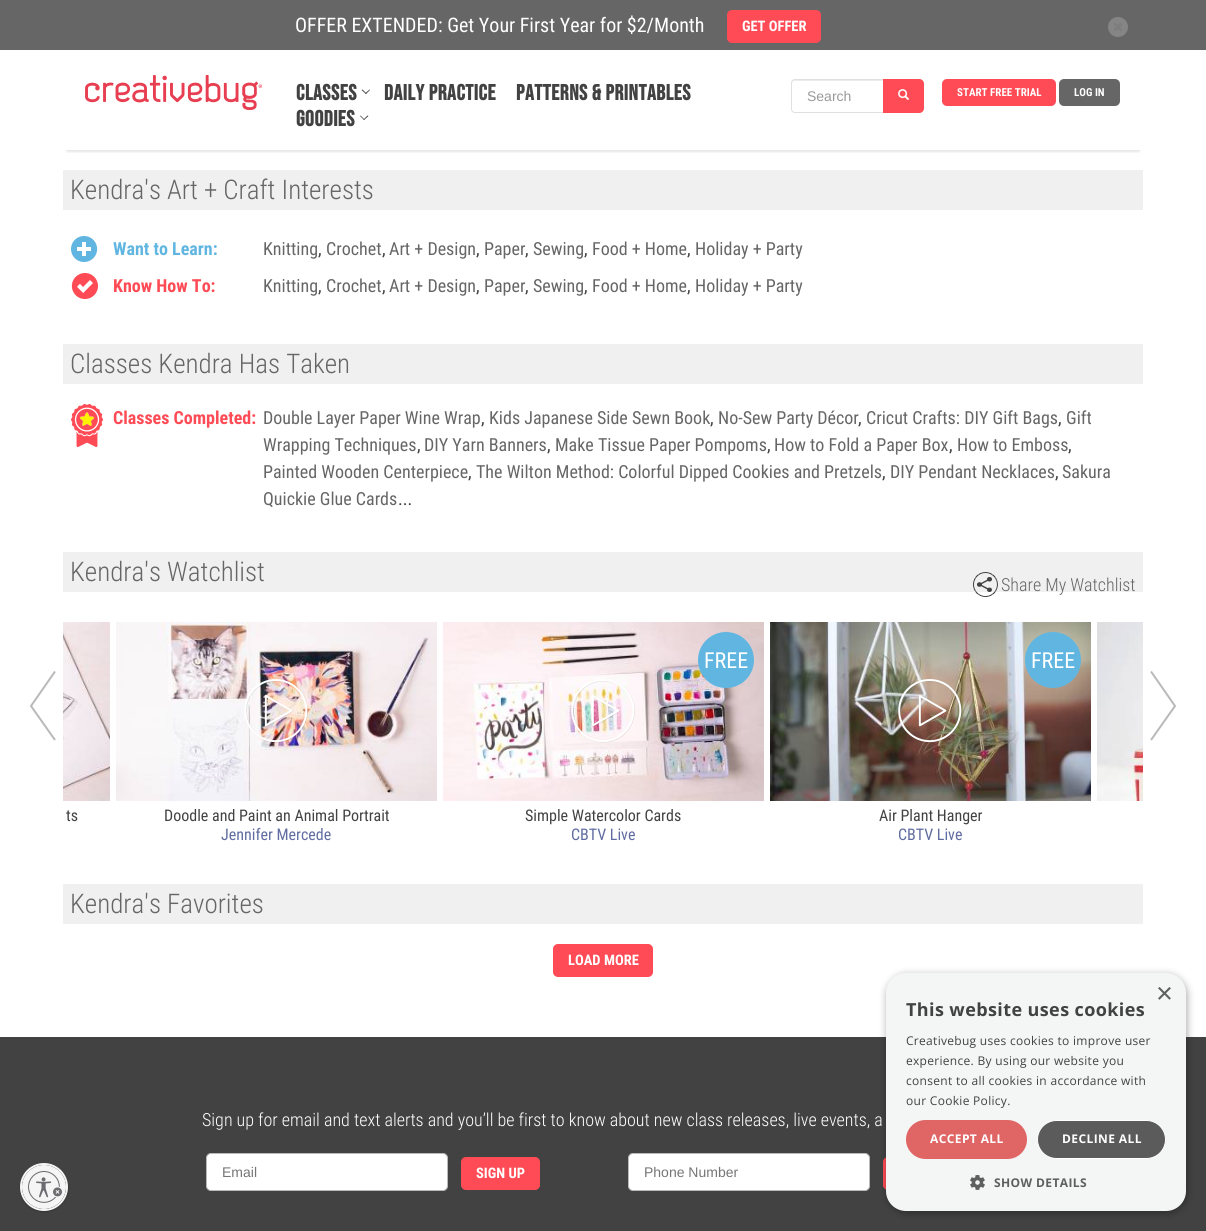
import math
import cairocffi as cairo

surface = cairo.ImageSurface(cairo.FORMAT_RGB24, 1206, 1231)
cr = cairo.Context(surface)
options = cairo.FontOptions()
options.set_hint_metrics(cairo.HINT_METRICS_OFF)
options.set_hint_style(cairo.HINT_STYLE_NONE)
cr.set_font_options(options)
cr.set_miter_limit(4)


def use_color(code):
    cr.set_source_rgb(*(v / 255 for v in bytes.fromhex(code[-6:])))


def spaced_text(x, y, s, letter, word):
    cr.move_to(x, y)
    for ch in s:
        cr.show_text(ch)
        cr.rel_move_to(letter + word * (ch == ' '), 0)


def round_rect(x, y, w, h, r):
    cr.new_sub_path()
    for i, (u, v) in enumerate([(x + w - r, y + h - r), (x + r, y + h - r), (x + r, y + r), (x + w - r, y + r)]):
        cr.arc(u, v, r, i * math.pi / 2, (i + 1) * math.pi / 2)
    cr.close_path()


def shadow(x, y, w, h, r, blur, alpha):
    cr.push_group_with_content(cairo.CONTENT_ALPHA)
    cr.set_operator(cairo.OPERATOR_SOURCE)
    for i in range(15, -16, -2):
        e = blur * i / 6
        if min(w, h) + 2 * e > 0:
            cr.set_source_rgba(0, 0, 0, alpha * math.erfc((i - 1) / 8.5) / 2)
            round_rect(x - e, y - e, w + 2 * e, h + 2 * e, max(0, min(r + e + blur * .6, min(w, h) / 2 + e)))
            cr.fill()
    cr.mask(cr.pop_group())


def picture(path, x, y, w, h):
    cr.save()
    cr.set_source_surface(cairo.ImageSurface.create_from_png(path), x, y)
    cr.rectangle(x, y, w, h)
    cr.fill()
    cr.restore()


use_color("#ffffff")
cr.paint()
use_color("#666666")
cr.rectangle(0, 0, 1206, 50)
cr.fill()
cr.select_font_face("Roboto Condensed")
cr.set_font_size(20)
use_color("#ffffff")
cr.move_to(295, 32)
cr.show_text("OFFER EXTENDED: Get Your First Year for $2/Month")
use_color("#ff4b55")
round_rect(727, 10, 94, 33, 5)
cr.fill()
cr.select_font_face("Roboto Condensed", cairo.FONT_SLANT_NORMAL, cairo.FONT_WEIGHT_BOLD)
cr.set_font_size(14.5)
use_color("#ffffff")
cr.move_to(742, 31)
cr.show_text("GET OFFER")
use_color("#858585")
cr.new_path()
cr.arc(1118, 27, 10, 0, 2 * math.pi)
cr.fill()
picture("img1.png", 1114, 23, 8, 8)
cr.save()
cr.rectangle(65, 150, 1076, 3)
cr.clip()
use_color("#000000")
shadow(67, 59, 1072, 92, 0, 2, 0.16)
cr.restore()
picture("img2.png", 85, 75, 178, 35)
cr.select_font_face("Bebas Neue", cairo.FONT_SLANT_NORMAL, cairo.FONT_WEIGHT_BOLD)
cr.set_font_size(22)
use_color("#424242")
spaced_text(296, 100, "Classes", 0.5, 0)
cr.new_path()
cr.move_to(369.5, 89.5)
cr.line_to(370, 90)
cr.line_to(366, 94)
cr.line_to(365, 93.5)
cr.close_path()
cr.fill()
cr.new_path()
cr.move_to(362.5, 89.5)
cr.line_to(366.5, 93.5)
cr.line_to(366, 94)
cr.line_to(361.5, 90)
cr.close_path()
cr.fill()
spaced_text(384, 100, "Daily Practice", 0.5, 0)
spaced_text(516, 100, "Patterns & Printables", 0.5, 0)
spaced_text(296, 126, "Goodies", 0.5, 0)
cr.new_path()
cr.move_to(367.5, 115.5)
cr.line_to(368.5, 116)
cr.line_to(364, 120)
cr.line_to(363.5, 119.5)
cr.close_path()
cr.fill()
cr.new_path()
cr.move_to(360.5, 115.5)
cr.line_to(364.5, 119.5)
cr.line_to(364, 120)
cr.line_to(360, 116)
cr.close_path()
cr.fill()
use_color("#ececec")
cr.new_path()
cr.move_to(795, 81)
cr.line_to(883, 81)
cr.line_to(883, 80)
cr.line_to(795, 80)
cr.curve_to(793, 80, 792, 81, 792, 83)
cr.line_to(792, 84)
cr.curve_to(792, 82, 793, 81, 795, 81)
cr.close_path()
cr.fill()
cr.new_path()
cr.move_to(795, 79.5)
cr.line_to(883.5, 79.5)
cr.line_to(883.5, 112.5)
cr.line_to(795, 112.5)
cr.curve_to(793, 112.5, 791.5, 111, 791.5, 109)
cr.line_to(791.5, 83)
cr.curve_to(791.5, 81, 793, 79.5, 795, 79.5)
cr.close_path()
use_color("#e0e0e0")
cr.set_line_width(1)
cr.stroke()
cr.select_font_face("Liberation Sans")
cr.set_font_size(14)
use_color("#999999")
cr.move_to(807, 101)
cr.show_text("Search")
use_color("#ff4b55")
cr.new_path()
cr.move_to(883, 79)
cr.line_to(919, 79)
cr.curve_to(922, 79, 924, 81, 924, 84)
cr.line_to(924, 108)
cr.curve_to(924, 111, 922, 113, 919, 113)
cr.line_to(883, 113)
cr.close_path()
cr.fill()
picture("img3.png", 898, 89, 11, 11)
round_rect(942, 79, 114, 27, 5)
cr.fill()
cr.select_font_face("Roboto Condensed", cairo.FONT_SLANT_NORMAL, cairo.FONT_WEIGHT_BOLD)
cr.set_font_size(11)
use_color("#ffffff")
cr.move_to(957, 96)
cr.show_text("START FREE TRIAL")
use_color("#666666")
round_rect(1059, 79, 61, 27, 5)
cr.fill()
use_color("#ffffff")
cr.move_to(1074, 96)
cr.show_text("LOG IN")
use_color("#f0f0f0")
cr.rectangle(63, 170, 1080, 40)
cr.fill()
cr.select_font_face("Roboto Condensed Light")
cr.set_font_size(27)
use_color("#666666")
cr.move_to(70, 199)
cr.show_text("Kendra's Art + Craft Interests")
picture("img4.png", 71, 236, 27, 26)
cr.select_font_face("Roboto Condensed", cairo.FONT_SLANT_NORMAL, cairo.FONT_WEIGHT_BOLD)
cr.set_font_size(18)
use_color("#60b6e1")
cr.move_to(113, 255)
cr.show_text("Want to Learn:")
cr.select_font_face("Roboto Condensed")
use_color("#666666")
cr.move_to(263, 255)
cr.show_text("Knitting")
use_color("#424242")
cr.move_to(318, 255)
cr.show_text(",")
use_color("#666666")
cr.move_to(326, 255)
cr.show_text("Crochet")
use_color("#424242")
cr.move_to(382, 255)
cr.show_text(",")
use_color("#666666")
cr.move_to(389, 255)
cr.show_text("Art + Design")
use_color("#424242")
cr.move_to(476, 255)
cr.show_text(",")
use_color("#666666")
cr.move_to(484, 255)
cr.show_text("Paper")
use_color("#424242")
cr.move_to(525, 255)
cr.show_text(",")
use_color("#666666")
cr.move_to(533, 255)
cr.show_text("Sewing")
use_color("#424242")
cr.move_to(584, 255)
cr.show_text(",")
use_color("#666666")
cr.move_to(592, 255)
cr.show_text("Food + Home")
use_color("#424242")
cr.move_to(687, 255)
cr.show_text(",")
use_color("#666666")
cr.move_to(695, 255)
cr.show_text("Holiday + Party")
picture("img5.png", 71, 273, 27, 26)
cr.select_font_face("Roboto Condensed", cairo.FONT_SLANT_NORMAL, cairo.FONT_WEIGHT_BOLD)
use_color("#ff4b55")
cr.move_to(113, 292)
cr.show_text("Know How To:")
cr.select_font_face("Roboto Condensed")
use_color("#666666")
cr.move_to(263, 292)
cr.show_text("Knitting")
use_color("#424242")
cr.move_to(318, 292)
cr.show_text(",")
use_color("#666666")
cr.move_to(326, 292)
cr.show_text("Crochet")
use_color("#424242")
cr.move_to(382, 292)
cr.show_text(",")
use_color("#666666")
cr.move_to(389, 292)
cr.show_text("Art + Design")
use_color("#424242")
cr.move_to(476, 292)
cr.show_text(",")
use_color("#666666")
cr.move_to(484, 292)
cr.show_text("Paper")
use_color("#424242")
cr.move_to(525, 292)
cr.show_text(",")
use_color("#666666")
cr.move_to(533, 292)
cr.show_text("Sewing")
use_color("#424242")
cr.move_to(584, 292)
cr.show_text(",")
use_color("#666666")
cr.move_to(592, 292)
cr.show_text("Food + Home")
use_color("#424242")
cr.move_to(687, 292)
cr.show_text(",")
use_color("#666666")
cr.move_to(695, 292)
cr.show_text("Holiday + Party")
use_color("#f0f0f0")
cr.rectangle(63, 344, 1080, 40)
cr.fill()
cr.select_font_face("Roboto Condensed Light")
cr.set_font_size(27)
use_color("#666666")
cr.move_to(70, 373)
cr.show_text("Classes Kendra Has Taken")
picture("img6.png", 71, 404, 32, 43)
cr.select_font_face("Roboto Condensed", cairo.FONT_SLANT_NORMAL, cairo.FONT_WEIGHT_BOLD)
cr.set_font_size(18)
use_color("#ff4b55")
cr.move_to(113, 424)
cr.show_text("Classes Completed:")
cr.select_font_face("Roboto Condensed")
use_color("#666666")
cr.move_to(263, 424)
cr.show_text("Double Layer Paper Wine Wrap")
use_color("#424242")
cr.move_to(481, 424)
cr.show_text(",")
use_color("#666666")
cr.move_to(489, 424)
cr.show_text("Kids Japanese Side Sewn Book")
use_color("#424242")
cr.move_to(710, 424)
cr.show_text(",")
use_color("#666666")
cr.move_to(718, 424)
cr.show_text("No-Sew Party Décor")
use_color("#424242")
cr.move_to(858, 424)
cr.show_text(",")
use_color("#666666")
cr.move_to(866, 424)
cr.show_text("Cricut Crafts: DIY Gift Bags")
use_color("#424242")
cr.move_to(1058, 424)
cr.show_text(",")
use_color("#666666")
cr.move_to(1066, 424)
cr.show_text("Gift")
cr.move_to(263, 451)
cr.show_text("Wrapping Techniques")
use_color("#424242")
cr.move_to(417, 451)
cr.show_text(",")
use_color("#666666")
cr.move_to(424, 451)
cr.show_text("DIY Yarn Banners")
use_color("#424242")
cr.move_to(547, 451)
cr.show_text(",")
use_color("#666666")
cr.move_to(555, 451)
cr.show_text("Make Tissue Paper Pompoms")
use_color("#424242")
cr.move_to(767, 451)
cr.show_text(",")
use_color("#666666")
cr.move_to(774, 451)
cr.show_text("How to Fold a Paper Box")
use_color("#424242")
cr.move_to(949, 451)
cr.show_text(",")
use_color("#666666")
cr.move_to(957, 451)
cr.show_text("How to Emboss")
use_color("#424242")
cr.move_to(1068, 451)
cr.show_text(",")
use_color("#666666")
cr.move_to(263, 478)
cr.show_text("Painted Wooden Centerpiece")
use_color("#424242")
cr.move_to(468, 478)
cr.show_text(",")
use_color("#666666")
cr.move_to(476, 478)
cr.show_text("The Wilton Method: Colorful Dipped Cookies and Pretzels")
use_color("#424242")
cr.move_to(882, 478)
cr.show_text(",")
use_color("#666666")
cr.move_to(890, 478)
cr.show_text("DIY Pendant Necklaces")
use_color("#424242")
cr.move_to(1055, 478)
cr.show_text(",")
use_color("#666666")
cr.move_to(1062, 478)
cr.show_text("Sakura")
cr.move_to(263, 505)
cr.show_text("Quickie Glue Cards")
use_color("#424242")
cr.move_to(398, 505)
cr.show_text("...")
use_color("#f0f0f0")
cr.rectangle(63, 552, 1080, 40)
cr.fill()
cr.select_font_face("Roboto Condensed Light")
cr.set_font_size(27)
use_color("#666666")
cr.move_to(70, 581)
cr.show_text("Kendra's Watchlist")
picture("img7.png", 973, 572, 25, 25)
cr.set_font_size(18)
cr.move_to(1001, 591)
cr.show_text("Share My Watchlist")
cr.new_path()
cr.move_to(55, 671.5)
cr.line_to(31, 706)
cr.line_to(55, 740)
use_color("#b9b9b9")
cr.set_line_width(2)
cr.stroke()
picture("img8.png", 63, 622, 47, 179)
cr.select_font_face("Roboto Condensed")
cr.set_font_size(16)
use_color("#424242")
cr.move_to(66, 821)
cr.show_text("ts")
picture("img9.png", 116, 622, 321, 179)
picture("img10.png", 244, 679, 64, 64)
cr.move_to(164, 821)
cr.show_text("Doodle and Paint an Animal Portrait")
use_color("#606ca1")
cr.move_to(221, 840)
cr.show_text("Jennifer Mercede")
picture("img11.png", 443, 622, 321, 179)
use_color("#60b6e1")
cr.arc(726, 660, 28, 0, 2 * math.pi)
cr.fill()
cr.set_font_size(22)
use_color("#ffffff")
cr.move_to(704, 668)
cr.show_text("FREE")
picture("img12.png", 571, 679, 64, 64)
cr.set_font_size(16)
use_color("#424242")
cr.move_to(525, 821)
cr.show_text("Simple Watercolor Cards")
use_color("#606ca1")
cr.move_to(571, 840)
cr.show_text("CBTV Live")
picture("img13.png", 770, 622, 321, 179)
use_color("#60b6e1")
cr.arc(1053, 660, 28, 0, 2 * math.pi)
cr.fill()
cr.set_font_size(22)
use_color("#ffffff")
cr.move_to(1031, 668)
cr.show_text("FREE")
picture("img14.png", 898, 679, 64, 64)
cr.set_font_size(16)
use_color("#424242")
cr.move_to(879, 821)
cr.show_text("Air Plant Hanger")
use_color("#606ca1")
cr.move_to(898, 840)
cr.show_text("CBTV Live")
picture("img15.png", 1097, 622, 46, 179)
cr.new_path()
cr.move_to(1151, 671.5)
cr.line_to(1175, 706)
cr.line_to(1151, 740)
use_color("#b9b9b9")
cr.stroke()
use_color("#f0f0f0")
cr.rectangle(63, 884, 1080, 40)
cr.fill()
cr.select_font_face("Roboto Condensed Light")
cr.set_font_size(27)
use_color("#666666")
cr.move_to(70, 913)
cr.show_text("Kendra's Favorites")
use_color("#ff4b55")
round_rect(553, 944, 100, 33, 5)
cr.fill()
cr.select_font_face("Roboto Condensed", cairo.FONT_SLANT_NORMAL, cairo.FONT_WEIGHT_BOLD)
cr.set_font_size(14.5)
use_color("#ffffff")
cr.move_to(568, 965)
cr.show_text("LOAD MORE")
use_color("#424242")
cr.rectangle(0, 1037, 1206, 194)
cr.fill()
cr.select_font_face("Roboto Condensed Light")
cr.set_font_size(18)
use_color("#ffffff")
cr.move_to(202, 1126)
cr.show_text("Sign up for email and text alerts and you’ll be first to know about new class releases, live events, a")
round_rect(206.5, 1153.5, 241, 37, 4.5)
cr.fill_preserve()
use_color("#b9b9b9")
cr.set_line_width(1)
cr.stroke()
cr.select_font_face("Liberation Sans")
cr.set_font_size(14)
use_color("#757575")
cr.move_to(222, 1177)
cr.show_text("Email")
use_color("#ff4b55")
round_rect(461, 1157, 79, 33, 5)
cr.fill()
cr.select_font_face("Roboto Condensed", cairo.FONT_SLANT_NORMAL, cairo.FONT_WEIGHT_BOLD)
cr.set_font_size(14.5)
use_color("#ffffff")
cr.move_to(476, 1178)
cr.show_text("SIGN UP")
round_rect(628.5, 1153.5, 241, 37, 4.5)
cr.fill_preserve()
use_color("#b9b9b9")
cr.stroke()
cr.select_font_face("Liberation Sans")
cr.set_font_size(14)
use_color("#757575")
cr.move_to(644, 1177)
cr.show_text("Phone Number")
use_color("#ff4b55")
round_rect(883, 1157, 97, 33, 5)
cr.fill()
use_color("#000000")
shadow(20, 1164, 48, 48, 24, 1, 0.24)
cr.arc(44, 1187, 23, 0, 2 * math.pi)
use_color("#f5f5f5")
cr.set_line_width(2)
cr.stroke()
cr.save()
round_rect(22, 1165, 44, 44, 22)
cr.clip()
use_color("#000000")
shadow(22, 1166, 44, 44, 22, 1, 0.24)
cr.restore()
cr.arc(44, 1187, 22, 0, 2 * math.pi)
cr.fill()
picture("img16.png", 28, 1171, 34, 32)
use_color("#000000")
shadow(887, 975, 300, 238, 20, 4, 0.35)
use_color("#f3f6f4")
round_rect(886, 973, 300, 238, 20)
cr.fill()
cr.set_font_size(29)
use_color("#5e5f5e")
cr.move_to(1156, 1003)
cr.show_text("×")
cr.select_font_face("Open Sans", cairo.FONT_SLANT_NORMAL, cairo.FONT_WEIGHT_BOLD)
cr.set_font_size(18)
use_color("#424242")
spaced_text(906, 1016, "This website uses cookies", 0.4, 0)
cr.select_font_face("Open Sans")
cr.set_font_size(12)
spaced_text(906, 1045, "Creativebug uses cookies to improve user", 0.3, 0)
spaced_text(906, 1065, "experience. By using our website you", 0.3, 0)
spaced_text(906, 1085, "consent to all cookies in accordance with", 0.3, 0)
spaced_text(906, 1105, "our Cookie Policy.", 0.3, 0)
use_color("#e06666")
round_rect(906, 1120, 121, 39, 19.5)
cr.fill()
cr.select_font_face("Open Sans", cairo.FONT_SLANT_NORMAL, cairo.FONT_WEIGHT_BOLD)
use_color("#ffffff")
spaced_text(930, 1143, "ACCEPT ALL", 0.4, 0)
use_color("#5b5b5b")
round_rect(1037.5, 1120.5, 128, 38, 19)
cr.fill_preserve()
use_color("#ffffff")
cr.set_line_width(1)
cr.stroke()
spaced_text(1062, 1143, "DECLINE ALL", 0.4, 0)
picture("img17.png", 970, 1175, 15, 15)
use_color("#5e5f5e")
spaced_text(994, 1187, "SHOW DETAILS", 0.4, 0)
surface.write_to_png("result.png")
